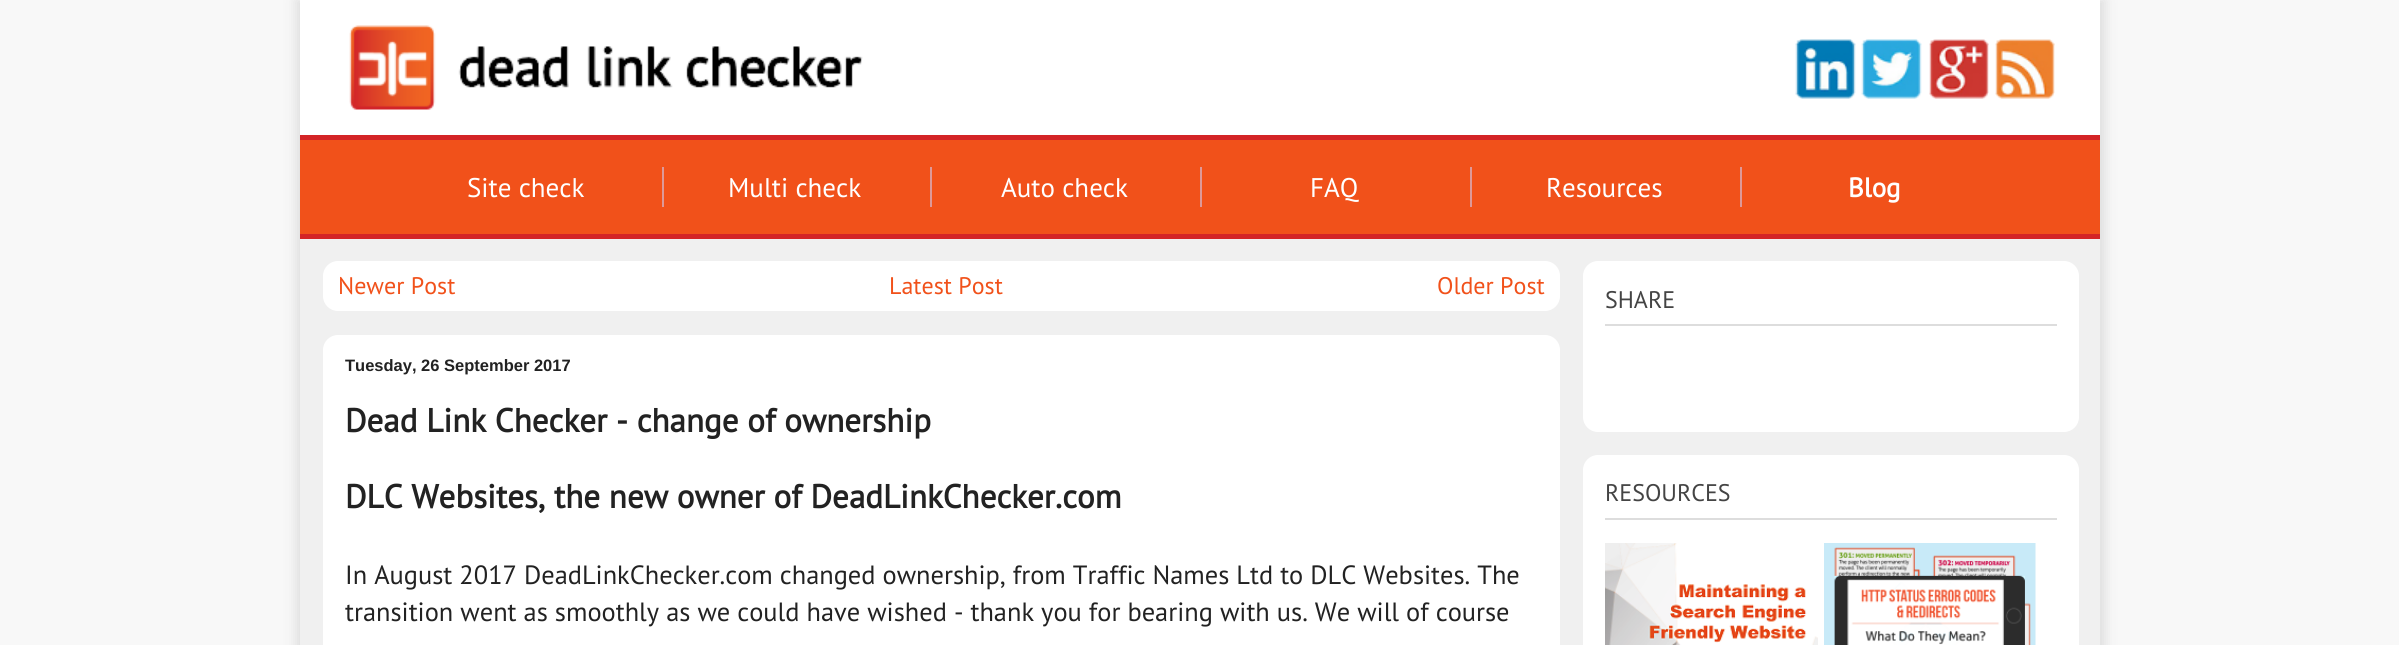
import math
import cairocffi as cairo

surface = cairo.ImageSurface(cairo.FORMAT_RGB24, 2399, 645)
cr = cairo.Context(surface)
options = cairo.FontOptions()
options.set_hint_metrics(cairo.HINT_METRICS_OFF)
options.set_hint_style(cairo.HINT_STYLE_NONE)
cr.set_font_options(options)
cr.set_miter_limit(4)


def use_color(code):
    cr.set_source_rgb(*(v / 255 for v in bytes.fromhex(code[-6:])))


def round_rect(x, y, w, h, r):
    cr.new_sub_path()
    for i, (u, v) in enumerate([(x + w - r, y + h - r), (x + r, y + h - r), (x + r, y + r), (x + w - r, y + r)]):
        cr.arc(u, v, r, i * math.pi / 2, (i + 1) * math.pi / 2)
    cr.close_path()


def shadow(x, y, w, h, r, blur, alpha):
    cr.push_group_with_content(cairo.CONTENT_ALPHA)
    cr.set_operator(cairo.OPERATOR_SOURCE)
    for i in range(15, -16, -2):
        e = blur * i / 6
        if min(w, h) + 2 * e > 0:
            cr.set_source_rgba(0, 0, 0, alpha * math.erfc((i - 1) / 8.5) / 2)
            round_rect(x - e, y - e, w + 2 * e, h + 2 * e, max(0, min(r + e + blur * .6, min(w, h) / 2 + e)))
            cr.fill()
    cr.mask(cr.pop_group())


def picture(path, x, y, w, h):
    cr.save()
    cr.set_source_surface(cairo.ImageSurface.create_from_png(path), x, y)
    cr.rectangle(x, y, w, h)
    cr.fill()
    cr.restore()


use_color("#f8f8f8")
cr.paint()
use_color("#dddddd")
shadow(296, 0, 1809, 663, 0, 6, 1)
use_color("#ffffff")
cr.rectangle(300, 0, 1800, 135)
cr.fill()
picture("img1.png", 349, 25, 514, 85)
picture("img2.png", 1795, 39, 61, 60)
picture("img3.png", 1861, 39, 61, 60)
picture("img4.png", 1929, 39, 60, 60)
picture("img5.png", 1995, 39, 60, 60)
use_color("#f1511a")
cr.rectangle(300, 140, 1800, 94)
cr.fill()
use_color("#d42426")
cr.rectangle(300, 135, 1800, 5)
cr.fill()
cr.rectangle(300, 234, 1800, 5)
cr.fill()
cr.select_font_face("PT Sans")
cr.set_font_size(27)
use_color("#ffffff")
cr.move_to(467, 197)
cr.show_text("Site check")
use_color("#dd9999")
cr.rectangle(662, 167, 2, 40)
cr.fill()
use_color("#ffffff")
cr.move_to(728, 197)
cr.show_text("Multi check")
use_color("#dd9999")
cr.rectangle(930, 167, 2, 40)
cr.fill()
use_color("#ffffff")
cr.move_to(1001, 197)
cr.show_text("Auto check")
use_color("#dd9999")
cr.rectangle(1200, 167, 2, 40)
cr.fill()
use_color("#ffffff")
cr.move_to(1310, 197)
cr.show_text("FAQ")
use_color("#dd9999")
cr.rectangle(1470, 167, 2, 40)
cr.fill()
use_color("#ffffff")
cr.move_to(1546, 197)
cr.show_text("Resources")
use_color("#dd9999")
cr.rectangle(1740, 167, 2, 40)
cr.fill()
cr.select_font_face("PT Sans", cairo.FONT_SLANT_NORMAL, cairo.FONT_WEIGHT_BOLD)
use_color("#ffffff")
cr.move_to(1848, 197)
cr.show_text("Blog")
use_color("#f0f0f0")
cr.rectangle(300, 239, 1800, 406)
cr.fill()
use_color("#ffffff")
round_rect(323, 261, 1237, 50, 15)
cr.fill()
cr.select_font_face("PT Sans")
cr.set_font_size(24)
use_color("#f1511a")
cr.move_to(338, 294)
cr.show_text("Newer Post")
cr.move_to(889, 294)
cr.show_text("Latest Post")
cr.move_to(1437, 294)
cr.show_text("Older Post")
use_color("#ffffff")
round_rect(323, 335, 1237, 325, 15)
cr.fill()
cr.select_font_face("Liberation Sans", cairo.FONT_SLANT_NORMAL, cairo.FONT_WEIGHT_BOLD)
cr.set_font_size(16.5)
use_color("#222222")
cr.move_to(345, 371)
cr.show_text("Tuesday, 26 September 2017")
cr.select_font_face("PT Sans", cairo.FONT_SLANT_NORMAL, cairo.FONT_WEIGHT_BOLD)
cr.set_font_size(33)
cr.move_to(345, 432)
cr.show_text("Dead Link Checker - change of ownership")
cr.move_to(345, 508)
cr.show_text("DLC Websites, the new owner of DeadLinkChecker.com")
cr.select_font_face("PT Sans")
cr.set_font_size(26.4)
cr.move_to(345, 584)
cr.show_text("In August 2017 DeadLinkChecker.com changed ownership, from Traffic Names Ltd to DLC Websites. The")
cr.move_to(345, 621)
cr.show_text("transition went as smoothly as we could have wished - thank you for bearing with us. We will of course")
use_color("#ffffff")
round_rect(1583, 261, 496, 171, 15)
cr.fill()
use_color("#dddddd")
cr.rectangle(1605, 324, 452, 2)
cr.fill()
cr.set_font_size(24)
use_color("#444444")
cr.move_to(1605, 308)
cr.show_text("SHARE")
use_color("#ffffff")
round_rect(1583, 455, 496, 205, 15)
cr.fill()
use_color("#dddddd")
cr.rectangle(1605, 518, 452, 2)
cr.fill()
use_color("#444444")
cr.move_to(1605, 501)
cr.show_text("RESOURCES")
picture("img6.png", 1605, 543, 213, 102)
picture("img7.png", 1824, 543, 212, 102)
surface.write_to_png("result.png")
